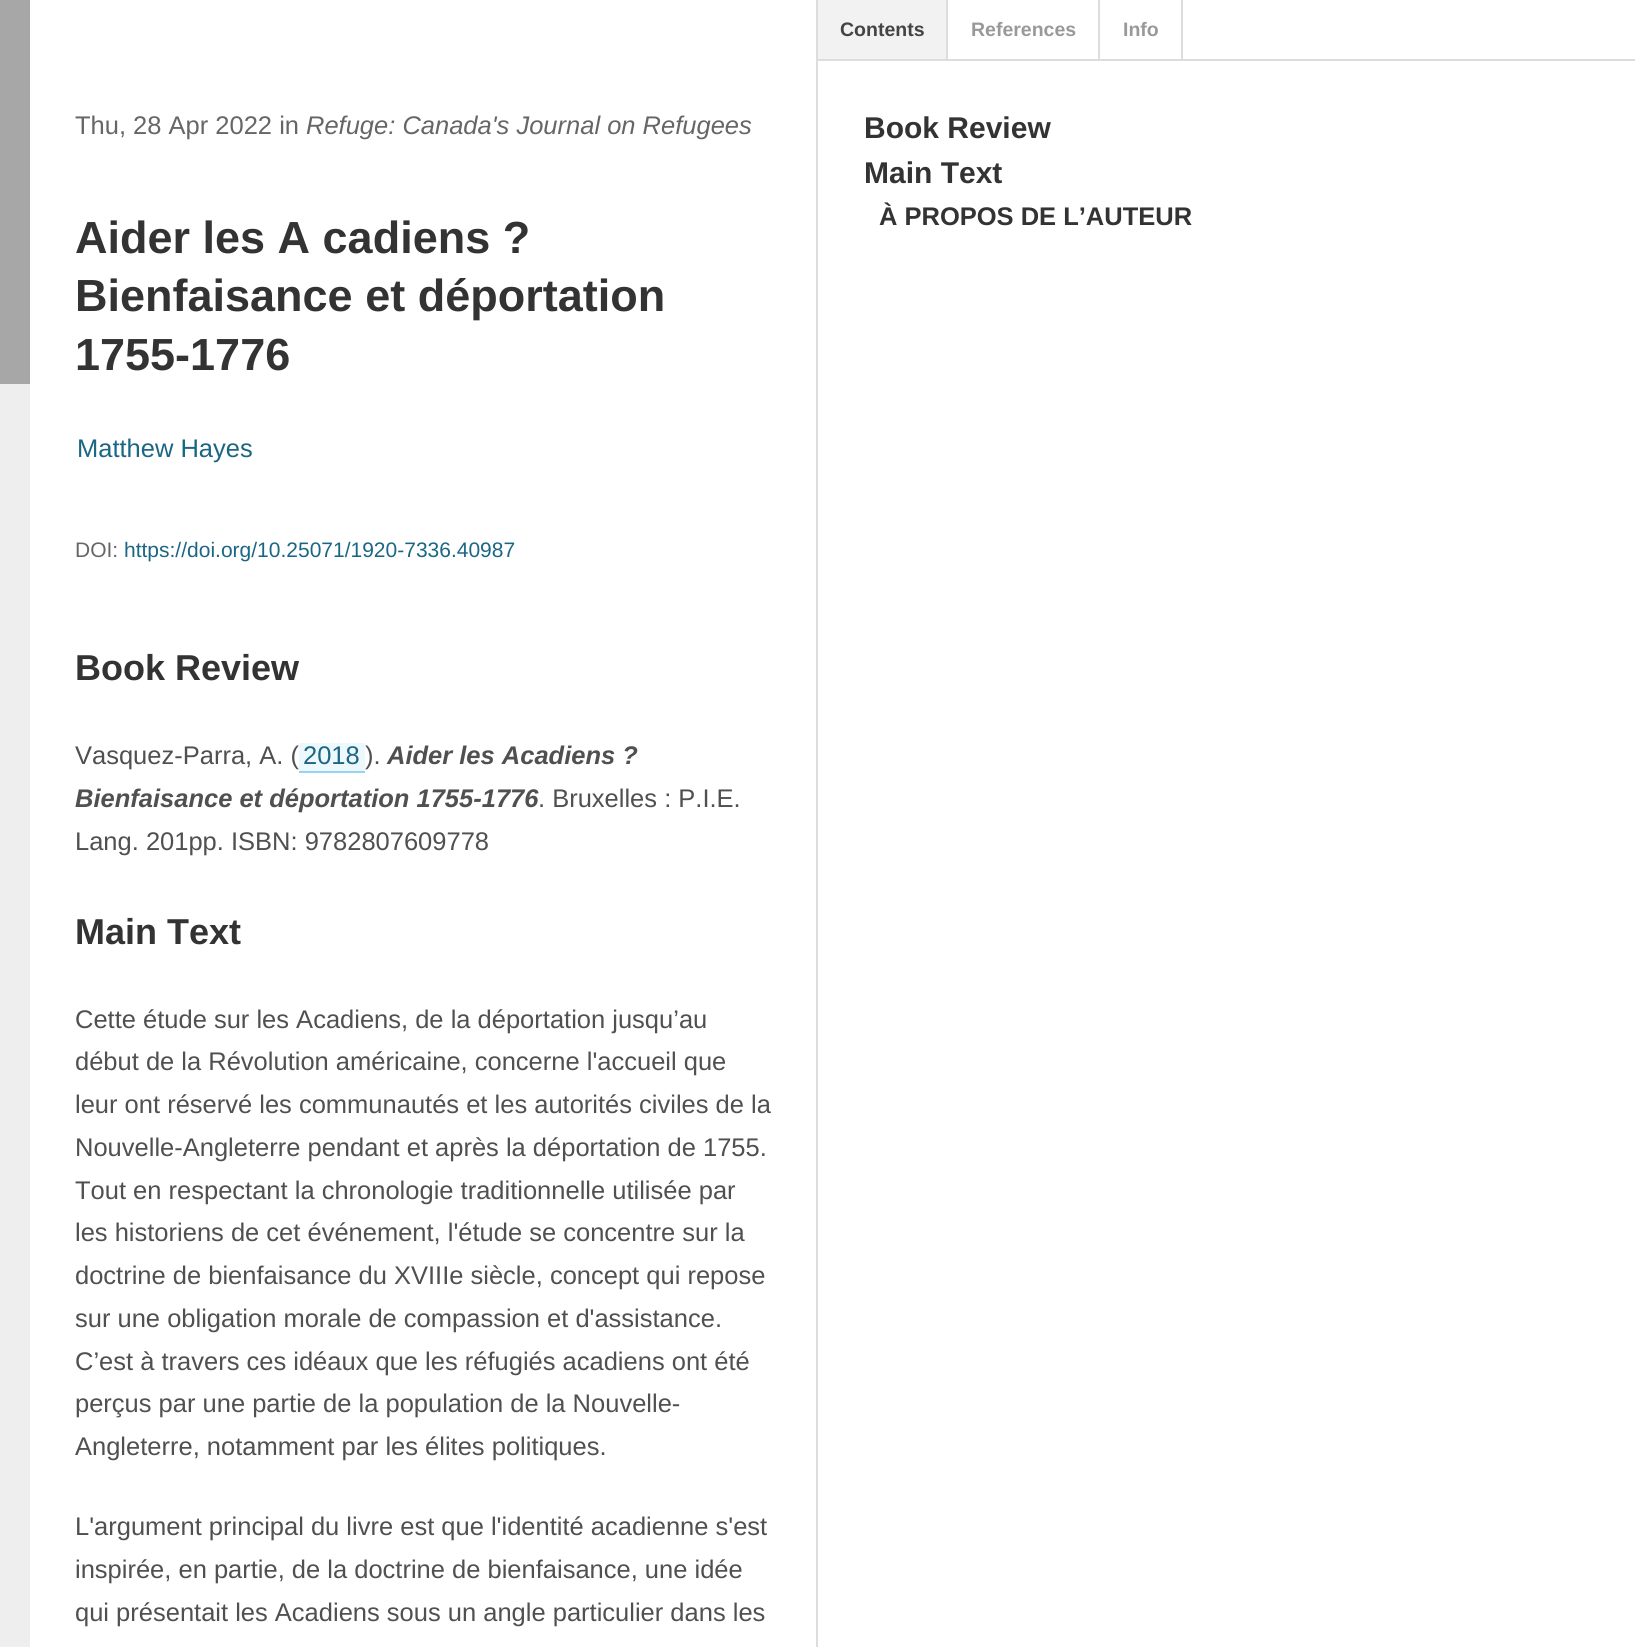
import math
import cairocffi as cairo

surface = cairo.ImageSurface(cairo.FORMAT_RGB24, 1635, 1647)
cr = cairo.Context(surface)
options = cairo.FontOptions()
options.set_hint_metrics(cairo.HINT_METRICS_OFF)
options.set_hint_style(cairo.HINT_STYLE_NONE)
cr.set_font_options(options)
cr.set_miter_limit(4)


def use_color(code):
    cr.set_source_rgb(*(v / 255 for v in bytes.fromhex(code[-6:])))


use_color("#ffffff")
cr.paint()
use_color("#dddddd")
cr.rectangle(816, 0, 2, 1647)
cr.fill()
use_color("#eeeeee")
cr.rectangle(0, 384, 30, 1263)
cr.fill()
use_color("#a7a7a7")
cr.rectangle(0, 0, 30, 384)
cr.fill()
cr.select_font_face("Liberation Sans")
cr.set_font_size(25.5)
use_color("#666666")
cr.move_to(75, 134)
cr.show_text("Thu, 28 Apr 2022 in")
cr.select_font_face("Liberation Sans", cairo.FONT_SLANT_ITALIC)
cr.move_to(306, 134)
cr.show_text("Refuge: Canada's Journal on Refugees")
cr.select_font_face("Liberation Sans", cairo.FONT_SLANT_NORMAL, cairo.FONT_WEIGHT_BOLD)
cr.set_font_size(45)
use_color("#333333")
cr.move_to(75, 253)
cr.show_text("Aider les A cadiens ?")
cr.move_to(75, 311)
cr.show_text("Bienfaisance et déportation")
cr.move_to(75, 370)
cr.show_text("1755-1776")
cr.select_font_face("Liberation Sans")
cr.set_font_size(25.5)
use_color("#1b6685")
cr.move_to(77, 457)
cr.show_text("Matthew Hayes")
cr.set_font_size(21)
use_color("#666666")
cr.move_to(75, 557)
cr.show_text("DOI:")
use_color("#1b6685")
cr.move_to(124, 557)
cr.show_text("https://doi.org/10.25071/1920-7336.40987")
cr.select_font_face("Liberation Sans", cairo.FONT_SLANT_NORMAL, cairo.FONT_WEIGHT_BOLD)
cr.set_font_size(36)
use_color("#333333")
cr.move_to(75, 680)
cr.show_text("Book Review")
cr.select_font_face("Liberation Sans")
cr.set_font_size(25.5)
use_color("#505050")
cr.move_to(75, 764)
cr.show_text("Vasquez-Parra, A. (")
use_color("#edf8fc")
cr.rectangle(299, 743, 66, 28)
cr.fill()
use_color("#93d4ee")
cr.rectangle(299, 771, 66, 2)
cr.fill()
use_color("#1b6685")
cr.move_to(303, 764)
cr.show_text("2018")
use_color("#505050")
cr.move_to(365, 764)
cr.show_text(").")
cr.select_font_face("Liberation Sans", cairo.FONT_SLANT_ITALIC, cairo.FONT_WEIGHT_BOLD)
cr.move_to(387, 764)
cr.show_text("Aider les Acadiens ?")
cr.move_to(75, 807)
cr.show_text("Bienfaisance et déportation 1755-1776")
cr.select_font_face("Liberation Sans")
cr.move_to(538, 807)
cr.show_text(". Bruxelles : P.I.E.")
cr.move_to(75, 850)
cr.show_text("Lang. 201pp. ISBN: 9782807609778")
cr.select_font_face("Liberation Sans", cairo.FONT_SLANT_NORMAL, cairo.FONT_WEIGHT_BOLD)
cr.set_font_size(36)
use_color("#333333")
cr.move_to(75, 944)
cr.show_text("Main Text")
cr.select_font_face("Liberation Sans")
cr.set_font_size(25.5)
use_color("#505050")
cr.move_to(75, 1028)
cr.show_text("Cette étude sur les Acadiens, de la déportation jusqu’au")
cr.move_to(75, 1070)
cr.show_text("début de la Révolution américaine, concerne l'accueil que")
cr.move_to(75, 1113)
cr.show_text("leur ont réservé les communautés et les autorités civiles de la")
cr.move_to(75, 1156)
cr.show_text("Nouvelle-Angleterre pendant et après la déportation de 1755.")
cr.move_to(75, 1199)
cr.show_text("Tout en respectant la chronologie traditionnelle utilisée par")
cr.move_to(75, 1241)
cr.show_text("les historiens de cet événement, l'étude se concentre sur la")
cr.move_to(75, 1284)
cr.show_text("doctrine de bienfaisance du XVIIIe siècle, concept qui repose")
cr.move_to(75, 1327)
cr.show_text("sur une obligation morale de compassion et d'assistance.")
cr.move_to(75, 1370)
cr.show_text("C’est à travers ces idéaux que les réfugiés acadiens ont été")
cr.move_to(75, 1412)
cr.show_text("perçus par une partie de la population de la Nouvelle-")
cr.move_to(75, 1455)
cr.show_text("Angleterre, notamment par les élites politiques.")
cr.move_to(75, 1535)
cr.show_text("L'argument principal du livre est que l'identité acadienne s'est")
cr.move_to(75, 1578)
cr.show_text("inspirée, en partie, de la doctrine de bienfaisance, une idée")
cr.move_to(75, 1621)
cr.show_text("qui présentait les Acadiens sous un angle particulier dans les")
use_color("#dddddd")
cr.rectangle(818, 59, 817, 2)
cr.fill()
use_color("#f2f2f2")
cr.rectangle(818, 0, 128, 59)
cr.fill()
cr.save()
cr.rectangle(818, 0, 817, 59)
cr.clip()
use_color("#dddddd")
cr.new_path()
cr.move_to(948, 0)
cr.line_to(948, 64)
cr.line_to(946, 60)
cr.line_to(946, 0)
cr.close_path()
cr.fill()
cr.restore()
cr.select_font_face("Liberation Sans", cairo.FONT_SLANT_NORMAL, cairo.FONT_WEIGHT_BOLD)
cr.set_font_size(19.5)
use_color("#444444")
cr.move_to(840, 36)
cr.show_text("Contents")
use_color("#dddddd")
cr.rectangle(1098, 0, 2, 59)
cr.fill()
use_color("#999999")
cr.move_to(971, 36)
cr.show_text("References")
use_color("#dddddd")
cr.rectangle(1181, 0, 2, 59)
cr.fill()
use_color("#999999")
cr.move_to(1123, 36)
cr.show_text("Info")
cr.set_font_size(30)
use_color("#333333")
cr.move_to(864, 138)
cr.show_text("Book Review")
cr.move_to(864, 183)
cr.show_text("Main Text")
cr.set_font_size(25.5)
cr.move_to(879, 225)
cr.show_text("À PROPOS DE L’AUTEUR")
surface.write_to_png("result.png")
